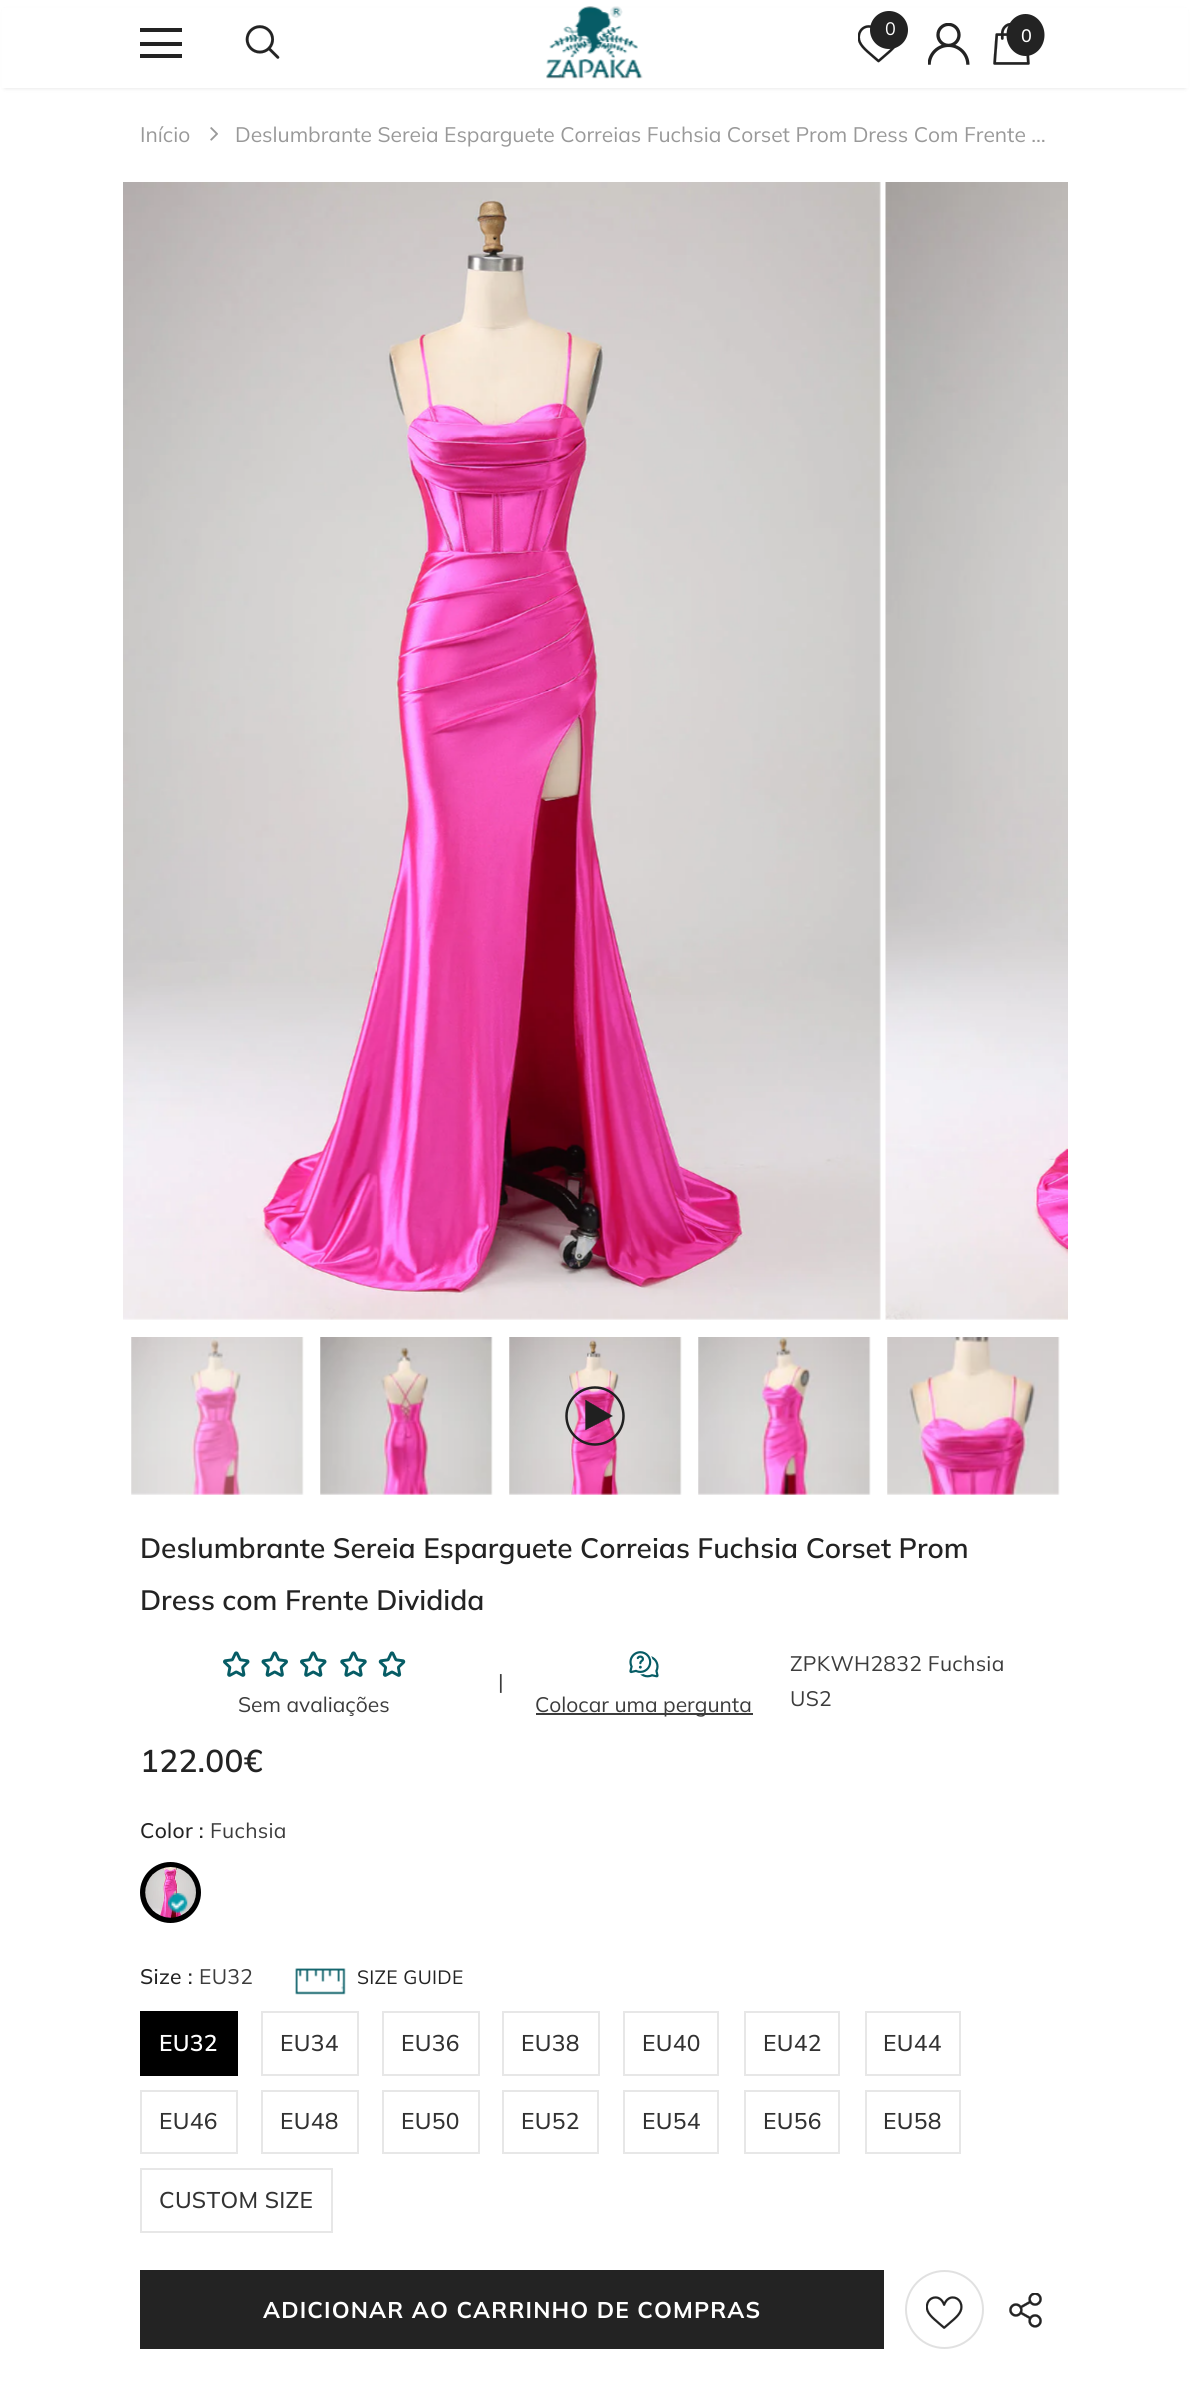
import math
import cairocffi as cairo

surface = cairo.ImageSurface(cairo.FORMAT_RGB24, 1190, 2390)
cr = cairo.Context(surface)
options = cairo.FontOptions()
options.set_hint_metrics(cairo.HINT_METRICS_OFF)
options.set_hint_style(cairo.HINT_STYLE_NONE)
cr.set_font_options(options)
cr.set_miter_limit(4)


def use_color(code):
    cr.set_source_rgb(*(v / 255 for v in bytes.fromhex(code[-6:])))


def spaced_text(x, y, s, letter, word):
    cr.move_to(x, y)
    for ch in s:
        cr.show_text(ch)
        cr.rel_move_to(letter + word * (ch == ' '), 0)


def round_rect(x, y, w, h, r):
    cr.new_sub_path()
    for i, (u, v) in enumerate([(x + w - r, y + h - r), (x + r, y + h - r), (x + r, y + r), (x + w - r, y + r)]):
        cr.arc(u, v, r, i * math.pi / 2, (i + 1) * math.pi / 2)
    cr.close_path()


def shadow(x, y, w, h, r, blur, alpha):
    cr.push_group_with_content(cairo.CONTENT_ALPHA)
    cr.set_operator(cairo.OPERATOR_SOURCE)
    for i in range(15, -16, -2):
        e = blur * i / 6
        if min(w, h) + 2 * e > 0:
            cr.set_source_rgba(0, 0, 0, alpha * math.erfc((i - 1) / 8.5) / 2)
            round_rect(x - e, y - e, w + 2 * e, h + 2 * e, max(0, min(r + e + blur * .6, min(w, h) / 2 + e)))
            cr.fill()
    cr.mask(cr.pop_group())


def picture(path, x, y, w, h):
    cr.save()
    cr.set_source_surface(cairo.ImageSurface.create_from_png(path), x, y)
    cr.rectangle(x, y, w, h)
    cr.fill()
    cr.restore()


use_color("#ffffff")
cr.paint()
use_color("#000000")
shadow(5, 11, 1180, 77, 0, 2.5, 0.12)
use_color("#ffffff")
cr.rectangle(2, 8, 1186, 80)
cr.fill()
use_color("#232323")
cr.rectangle(140, 28, 42, 4)
cr.fill()
cr.rectangle(140, 42, 42, 4)
cr.fill()
cr.rectangle(140, 54, 42, 4)
cr.fill()
picture("img1.png", 245, 25, 35, 34)
picture("img2.png", 546, 6, 97, 73)
picture("img3.png", 858, 25, 38, 38)
cr.arc(889, 30, 19, 0, 2 * math.pi)
cr.fill()
cr.select_font_face("Muli")
cr.set_font_size(18)
use_color("#ffffff")
cr.move_to(885, 35)
cr.show_text("0")
picture("img4.png", 928, 23, 42, 42)
picture("img5.png", 993, 23, 37, 42)
use_color("#232323")
cr.new_path()
cr.move_to(1025.5, 14)
cr.curve_to(1036, 14, 1044.5, 23.5, 1044.5, 35)
cr.curve_to(1044.5, 46.5, 1036, 56, 1025.5, 56)
cr.curve_to(1015, 56, 1006.5, 46.5, 1006.5, 35)
cr.curve_to(1006.5, 23.5, 1015, 14, 1025.5, 14)
cr.close_path()
cr.fill()
cr.select_font_face("Muli Medium")
use_color("#ffffff")
cr.move_to(1021, 42)
cr.show_text("0")
cr.select_font_face("Muli")
cr.set_font_size(21)
use_color("#999999")
cr.move_to(140, 142)
cr.show_text("Início")
picture("img6.png", 210, 127, 8, 14)
cr.move_to(235, 142)
cr.show_text("Deslumbrante Sereia Esparguete Correias Fuchsia Corset Prom Dress Com Frente …")
picture("img7.png", 123, 182, 758, 1138)
picture("img8.png", 885, 182, 183, 1138)
picture("img9.png", 131, 1337, 173, 158)
picture("img10.png", 320, 1337, 173, 158)
picture("img11.png", 509, 1337, 173, 158)
cr.arc(595, 1416, 28.5, 0, 2 * math.pi)
use_color("#202020")
cr.set_line_width(2.5)
cr.stroke()
cr.new_path()
cr.move_to(585.5, 1400)
cr.line_to(585.5, 1430)
cr.line_to(612.5, 1416)
cr.close_path()
cr.fill_preserve()
cr.set_line_width(0.3)
cr.stroke()
picture("img12.png", 698, 1337, 173, 158)
picture("img13.png", 887, 1337, 173, 158)
cr.select_font_face("Muli SemiBold")
cr.set_font_size(28)
use_color("#232323")
cr.move_to(140, 1558)
cr.show_text("Deslumbrante Sereia Esparguete Correias Fuchsia Corset Prom")
cr.move_to(140, 1610)
cr.show_text("Dress com Frente Dividida")
cr.select_font_face("Muli")
cr.set_font_size(21)
use_color("#3c3c3c")
spaced_text(498, 1689, "|", 0.3, 0)
picture("img14.png", 223, 1651, 27, 26)
picture("img15.png", 261, 1651, 27, 26)
picture("img14.png", 300, 1651, 27, 26)
picture("img16.png", 340, 1651, 27, 26)
picture("img17.png", 378, 1651, 28, 26)
cr.move_to(238, 1712)
cr.show_text("Sem avaliações")
picture("img18.png", 629, 1651, 30, 27)
cr.rectangle(536, 1713, 217, 2)
cr.fill()
cr.move_to(535, 1712)
cr.show_text("Colocar uma pergunta")
spaced_text(790, 1671, "ZPKWH2832 Fuchsia", 0.3, 0)
spaced_text(790, 1706, "US2", 0.3, 0)
cr.select_font_face("Muli SemiBold")
cr.set_font_size(31.5)
use_color("#232323")
spaced_text(140, 1772, "122.00€", 0.3, 0)
cr.select_font_face("Muli Medium")
cr.set_font_size(21)
spaced_text(140, 1838, "Color :", 0.3, 0)
cr.select_font_face("Muli")
use_color("#3c3c3c")
spaced_text(210, 1838, "Fuchsia", 0.3, 0)
use_color("#000000")
cr.new_path()
cr.arc(170.5, 1892.5, 28, 0, 2 * math.pi)
cr.fill_preserve()
cr.set_line_width(5)
cr.stroke()
picture("img19.png", 145, 1867, 51, 51)
picture("img20.png", 168, 1893, 20, 20)
cr.select_font_face("Muli Medium")
use_color("#232323")
spaced_text(140, 1984, "Size :", 0.3, 0)
cr.select_font_face("Muli")
use_color("#3c3c3c")
spaced_text(199, 1984, "EU32", 0.3, 0)
picture("img21.png", 295, 1968, 51, 27)
cr.set_font_size(19.25)
use_color("#232323")
spaced_text(357, 1984, "SIZE GUIDE", 0.3, 0)
use_color("#000000")
cr.rectangle(142, 2013, 94, 61)
cr.fill()
cr.rectangle(141, 2012, 96, 63)
cr.set_line_width(2)
cr.stroke()
cr.select_font_face("Muli SemiBold")
cr.set_font_size(22.75)
use_color("#ffffff")
spaced_text(159, 2051, "EU32", 0.3, 0)
cr.rectangle(262, 2012, 96, 63)
use_color("#e7e7e7")
cr.stroke()
cr.select_font_face("Muli Medium")
use_color("#323232")
spaced_text(280, 2051, "EU34", 0.3, 0)
cr.rectangle(383, 2012, 96, 63)
use_color("#e7e7e7")
cr.stroke()
use_color("#323232")
spaced_text(401, 2051, "EU36", 0.3, 0)
cr.rectangle(503, 2012, 96, 63)
use_color("#e7e7e7")
cr.stroke()
use_color("#323232")
spaced_text(521, 2051, "EU38", 0.3, 0)
cr.rectangle(624, 2012, 94, 63)
use_color("#e7e7e7")
cr.stroke()
use_color("#323232")
spaced_text(642, 2051, "EU40", 0.3, 0)
cr.rectangle(745, 2012, 94, 63)
use_color("#e7e7e7")
cr.stroke()
use_color("#323232")
spaced_text(763, 2051, "EU42", 0.3, 0)
cr.rectangle(866, 2012, 94, 63)
use_color("#e7e7e7")
cr.stroke()
use_color("#323232")
spaced_text(883, 2051, "EU44", 0.3, 0)
cr.rectangle(141, 2091, 96, 62)
use_color("#e7e7e7")
cr.stroke()
use_color("#323232")
spaced_text(159, 2129, "EU46", 0.3, 0)
cr.rectangle(262, 2091, 96, 62)
use_color("#e7e7e7")
cr.stroke()
use_color("#323232")
spaced_text(280, 2129, "EU48", 0.3, 0)
cr.rectangle(383, 2091, 96, 62)
use_color("#e7e7e7")
cr.stroke()
use_color("#323232")
spaced_text(401, 2129, "EU50", 0.3, 0)
cr.rectangle(503, 2091, 95, 62)
use_color("#e7e7e7")
cr.stroke()
use_color("#323232")
spaced_text(521, 2129, "EU52", 0.3, 0)
cr.rectangle(624, 2091, 94, 62)
use_color("#e7e7e7")
cr.stroke()
use_color("#323232")
spaced_text(642, 2129, "EU54", 0.3, 0)
cr.rectangle(745, 2091, 94, 62)
use_color("#e7e7e7")
cr.stroke()
use_color("#323232")
spaced_text(763, 2129, "EU56", 0.3, 0)
cr.rectangle(866, 2091, 94, 62)
use_color("#e7e7e7")
cr.stroke()
use_color("#323232")
spaced_text(883, 2129, "EU58", 0.3, 0)
cr.rectangle(141, 2169, 191, 63)
use_color("#e7e7e7")
cr.stroke()
use_color("#323232")
spaced_text(159, 2208, "CUSTOM SIZE", 0.3, 0)
use_color("#232323")
cr.rectangle(140, 2270, 744, 79)
cr.fill()
cr.select_font_face("Muli", cairo.FONT_SLANT_NORMAL, cairo.FONT_WEIGHT_BOLD)
use_color("#ffffff")
spaced_text(263, 2318, "ADICIONAR AO CARRINHO DE COMPRAS", 1.15, 0)
cr.new_path()
cr.arc(944.5, 2309.5, 38.5, 0, 2 * math.pi)
use_color("#e1e1e1")
cr.stroke()
picture("img22.png", 926, 2296, 37, 33)
picture("img23.png", 1009, 2293, 33, 35)
surface.write_to_png("result.png")
